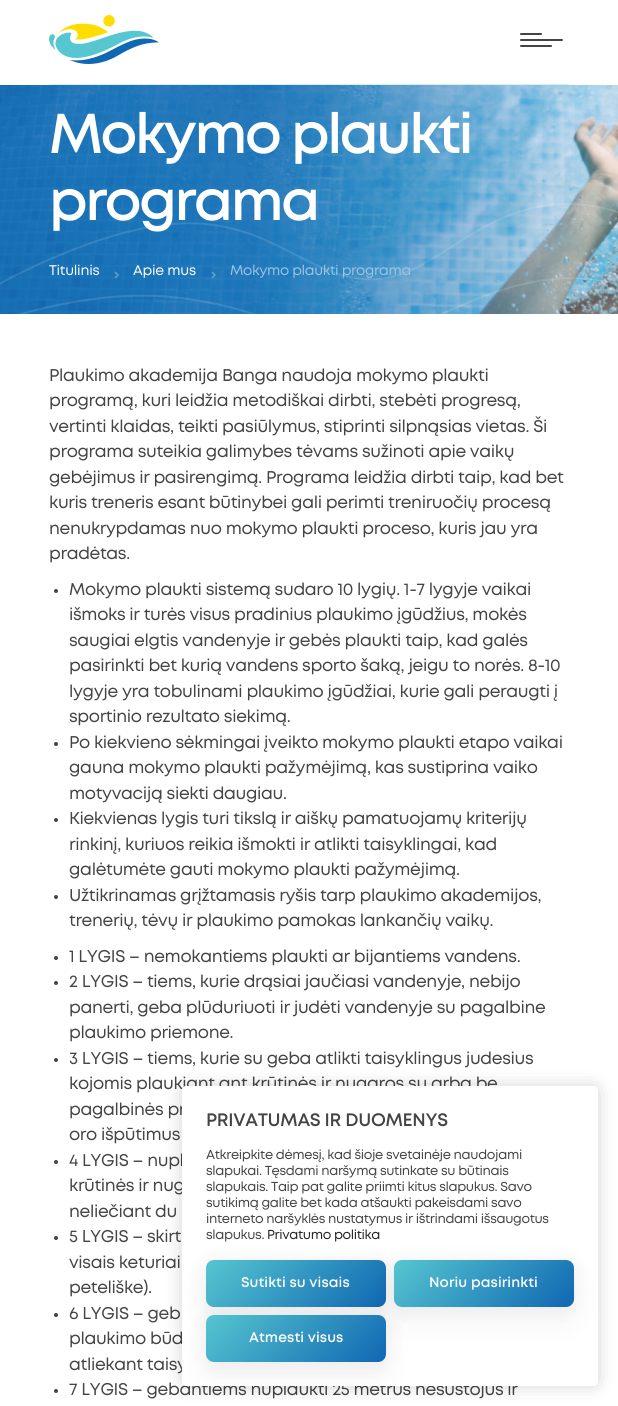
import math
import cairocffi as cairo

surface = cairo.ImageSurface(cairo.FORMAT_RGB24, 618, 1406)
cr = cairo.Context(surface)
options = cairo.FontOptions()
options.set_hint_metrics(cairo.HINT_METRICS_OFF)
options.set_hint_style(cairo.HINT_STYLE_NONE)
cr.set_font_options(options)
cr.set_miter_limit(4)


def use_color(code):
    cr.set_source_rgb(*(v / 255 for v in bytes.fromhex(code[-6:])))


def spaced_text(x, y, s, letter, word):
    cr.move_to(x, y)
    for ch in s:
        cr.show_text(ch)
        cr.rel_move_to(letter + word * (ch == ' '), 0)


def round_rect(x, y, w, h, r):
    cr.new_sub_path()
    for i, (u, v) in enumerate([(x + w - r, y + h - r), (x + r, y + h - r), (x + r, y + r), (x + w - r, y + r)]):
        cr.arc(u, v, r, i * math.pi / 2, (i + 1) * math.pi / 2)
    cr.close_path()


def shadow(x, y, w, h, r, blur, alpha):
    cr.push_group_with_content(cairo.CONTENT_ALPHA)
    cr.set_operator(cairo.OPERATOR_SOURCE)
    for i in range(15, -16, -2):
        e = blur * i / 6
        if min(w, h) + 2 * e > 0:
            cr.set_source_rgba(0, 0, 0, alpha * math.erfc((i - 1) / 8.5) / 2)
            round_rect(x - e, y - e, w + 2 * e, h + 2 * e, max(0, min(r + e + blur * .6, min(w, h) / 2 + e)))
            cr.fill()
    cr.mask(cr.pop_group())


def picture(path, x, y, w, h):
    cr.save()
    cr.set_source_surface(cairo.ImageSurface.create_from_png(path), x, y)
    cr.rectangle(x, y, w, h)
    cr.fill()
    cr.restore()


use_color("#ffffff")
cr.paint()
use_color("#d4f0f3")
cr.rectangle(49, 84, 520, 1)
cr.fill()
picture("img1.png", 49, 15, 110, 49)
use_color("#444444")
round_rect(520, 33, 22, 2, 1)
cr.fill()
round_rect(520, 39, 43, 2, 1)
cr.fill()
round_rect(520, 45, 32, 2, 1)
cr.fill()
picture("img2.png", 0, 85, 618, 229)
picture("img3.png", 0, 203, 618, 111)
cr.select_font_face("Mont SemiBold")
cr.set_font_size(56)
use_color("#ffffff")
spaced_text(49, 153, "Mokymo plaukti", -2.4, 0)
spaced_text(49, 220, "programa", -2.4, 0)
cr.select_font_face("Mont")
cr.set_font_size(14)
spaced_text(49, 275, "Titulinis", -0.25, 0)
cr.new_path()
cr.move_to(115, 272)
cr.line_to(118, 275)
cr.line_to(115, 278)
cr.set_source_rgba(1, 1, 1, 0.3)
cr.set_line_width(1.6)
cr.stroke()
use_color("#ffffff")
spaced_text(133, 275, "Apie mus", -0.25, 0)
cr.new_path()
cr.move_to(212, 272)
cr.line_to(215, 275)
cr.line_to(212, 278)
cr.set_source_rgba(1, 1, 1, 0.3)
cr.stroke()
use_color("#9ac3e1")
spaced_text(230, 275, "Mokymo plaukti programa", -0.35, 0)
cr.set_font_size(17)
use_color("#444444")
spaced_text(49, 381, "Plaukimo akademija Banga naudoja mokymo plaukti", -0.35, 0)
spaced_text(49, 406, "programą, kuri leidžia metodiškai dirbti, stebėti progresą,", -0.35, 0)
spaced_text(49, 432, "vertinti klaidas, teikti pasiūlymus, stiprinti silpnąsias vietas. Ši", -0.35, 0)
spaced_text(49, 457, "programa suteikia galimybes tėvams sužinoti apie vaikų", -0.35, 0)
spaced_text(49, 483, "gebėjimus ir pasirengimą. Programa leidžia dirbti taip, kad bet", -0.35, 0)
spaced_text(49, 508, "kuris treneris esant būtinybei gali perimti treniruočių procesą", -0.35, 0)
spaced_text(49, 534, "nenukrypdamas nuo mokymo plaukti proceso, kuris jau yra", -0.35, 0)
spaced_text(49, 559, "pradėtas.", -0.35, 0)
cr.new_path()
cr.arc(56, 591, 2, 0, 2 * math.pi)
cr.fill()
spaced_text(69, 595, "Mokymo plaukti sistemą sudaro 10 lygių. 1-7 lygyje vaikai", -0.35, 0)
spaced_text(69, 620, "išmoks ir turės visus pradinius plaukimo įgūdžius, mokės", -0.35, 0)
spaced_text(69, 646, "saugiai elgtis vandenyje ir gebės plaukti taip, kad galės", -0.35, 0)
spaced_text(69, 671, "pasirinkti bet kurią vandens sporto šaką, jeigu to norės. 8-10", -0.35, 0)
spaced_text(69, 697, "lygyje yra tobulinami plaukimo įgūdžiai, kurie gali peraugti į", -0.35, 0)
spaced_text(69, 722, "sportinio rezultato siekimą.", -0.35, 0)
cr.new_path()
cr.arc(56, 744, 2, 0, 2 * math.pi)
cr.fill()
spaced_text(69, 748, "Po kiekvieno sėkmingai įveikto mokymo plaukti etapo vaikai", -0.35, 0)
spaced_text(69, 773, "gauna mokymo plaukti pažymėjimą, kas sustiprina vaiko", -0.35, 0)
spaced_text(69, 799, "motyvaciją siekti daugiau.", -0.35, 0)
cr.new_path()
cr.arc(56, 820, 2, 0, 2 * math.pi)
cr.fill()
spaced_text(69, 824, "Kiekvienas lygis turi tikslą ir aiškų pamatuojamų kriterijų", -0.35, 0)
spaced_text(69, 850, "rinkinį, kuriuos reikia išmokti ir atlikti taisyklingai, kad", -0.35, 0)
spaced_text(69, 875, "galėtumėte gauti mokymo plaukti pažymėjimą.", -0.35, 0)
cr.new_path()
cr.arc(56, 897, 2, 0, 2 * math.pi)
cr.fill()
spaced_text(69, 901, "Užtikrinamas grįžtamasis ryšis tarp plaukimo akademijos,", -0.35, 0)
spaced_text(69, 926, "trenerių, tėvų ir plaukimo pamokas lankančių vaikų.", -0.35, 0)
cr.new_path()
cr.arc(56, 958, 2, 0, 2 * math.pi)
cr.fill()
spaced_text(69, 962, "1 LYGIS – nemokantiems plaukti ar bijantiems vandens.", -0.35, 0)
cr.new_path()
cr.arc(56, 983, 2, 0, 2 * math.pi)
cr.fill()
spaced_text(69, 987, "2 LYGIS – tiems, kurie drąsiai jaučiasi vandenyje, nebijo", -0.35, 0)
spaced_text(69, 1013, "panerti, geba plūduriuoti ir judėti vandenyje su pagalbine", -0.35, 0)
spaced_text(69, 1038, "plaukimo priemone.", -0.35, 0)
cr.new_path()
cr.arc(56, 1060, 2, 0, 2 * math.pi)
cr.fill()
spaced_text(69, 1064, "3 LYGIS – tiems, kurie su geba atlikti taisyklingus judesius", -0.35, 0)
spaced_text(69, 1089, "kojomis plaukiant ant krūtinės ir nugaros su arba be", -0.35, 0)
spaced_text(69, 1115, "pagalbinės pr", -0.35, 0)
spaced_text(69, 1140, "oro išpūtimus", -0.35, 0)
cr.new_path()
cr.arc(56, 1162, 2, 0, 2 * math.pi)
cr.fill()
spaced_text(69, 1166, "4 LYGIS – nupl", -0.35, 0)
spaced_text(69, 1191, "krūtinės ir nug", -0.35, 0)
spaced_text(69, 1217, "neliečiant du", -0.35, 0)
cr.new_path()
cr.arc(56, 1238, 2, 0, 2 * math.pi)
cr.fill()
spaced_text(69, 1242, "5 LYGIS – skirt", -0.35, 0)
spaced_text(69, 1268, "visais keturiai", -0.35, 0)
spaced_text(69, 1293, "peteliške).", -0.35, 0)
cr.new_path()
cr.arc(56, 1315, 2, 0, 2 * math.pi)
cr.fill()
spaced_text(69, 1319, "6 LYGIS – geb", -0.35, 0)
spaced_text(69, 1344, "plaukimo būd", -0.35, 0)
spaced_text(69, 1370, "atliekant taisy", -0.35, 0)
cr.new_path()
cr.arc(56, 1391, 2, 0, 2 * math.pi)
cr.fill()
spaced_text(69, 1395, "7 LYGIS – gebantiems nuplaukti 25 metrus nesustojus ir", -0.35, 0)
use_color("#000000")
shadow(187, 1091, 406, 290, 0, 10, 0.3)
use_color("#ffffff")
round_rect(182, 1086, 416, 300, 4)
cr.fill()
cr.select_font_face("Mont SemiBold")
cr.set_font_size(18)
use_color("#444444")
spaced_text(206, 1126, "PRIVATUMAS IR DUOMENYS", -0.3, 0)
cr.select_font_face("Mont")
cr.set_font_size(13)
spaced_text(206, 1159, "Atkreipkite dėmesį, kad šioje svetainėje naudojami", -0.35, 0)
spaced_text(206, 1175, "slapukai. Tęsdami naršymą sutinkate su būtinais", -0.35, 0)
spaced_text(206, 1191, "slapukais. Taip pat galite priimti kitus slapukus. Savo", -0.35, 0)
spaced_text(206, 1207, "sutikimą galite bet kada atšaukti pakeisdami savo", -0.35, 0)
spaced_text(206, 1223, "interneto naršyklės nustatymus ir ištrindami išsaugotus", -0.35, 0)
spaced_text(206, 1239, "slapukus.", -0.35, 0)
use_color("#222222")
spaced_text(267, 1239, "Privatumo politika", -0.35, 0)
use_color("#000000")
shadow(206, 1260, 180, 47, 8, 10, 0.05)
shadow(206, 1275, 180, 47, 8, 15, 0.05)
gradient = cairo.LinearGradient(239, 1227, 353, 1340)
gradient.add_color_stop_rgba(0, 0.337, 0.776, 0.816, 1)
gradient.add_color_stop_rgba(1, 0.063, 0.404, 0.698, 1)
cr.set_source(gradient)
round_rect(206, 1260, 180, 47, 8)
cr.fill()
cr.select_font_face("Mont SemiBold")
cr.set_font_size(14)
use_color("#ffffff")
spaced_text(241, 1287, "Sutikti su visais", 0.1, 0)
use_color("#000000")
shadow(394, 1260, 180, 47, 8, 10, 0.05)
shadow(394, 1275, 180, 47, 8, 15, 0.05)
gradient = cairo.LinearGradient(427, 1227, 541, 1340)
gradient.add_color_stop_rgba(0, 0.337, 0.776, 0.816, 1)
gradient.add_color_stop_rgba(1, 0.063, 0.404, 0.698, 1)
cr.set_source(gradient)
round_rect(394, 1260, 180, 47, 8)
cr.fill()
use_color("#ffffff")
spaced_text(429, 1287, "Noriu pasirinkti", 0.1, 0)
use_color("#000000")
shadow(206, 1315, 180, 47, 8, 10, 0.05)
shadow(206, 1330, 180, 47, 8, 15, 0.05)
gradient = cairo.LinearGradient(239, 1282, 353, 1395)
gradient.add_color_stop_rgba(0, 0.337, 0.776, 0.816, 1)
gradient.add_color_stop_rgba(1, 0.063, 0.404, 0.698, 1)
cr.set_source(gradient)
round_rect(206, 1315, 180, 47, 8)
cr.fill()
use_color("#ffffff")
spaced_text(249, 1342, "Atmesti visus", 0.1, 0)
surface.write_to_png("result.png")
